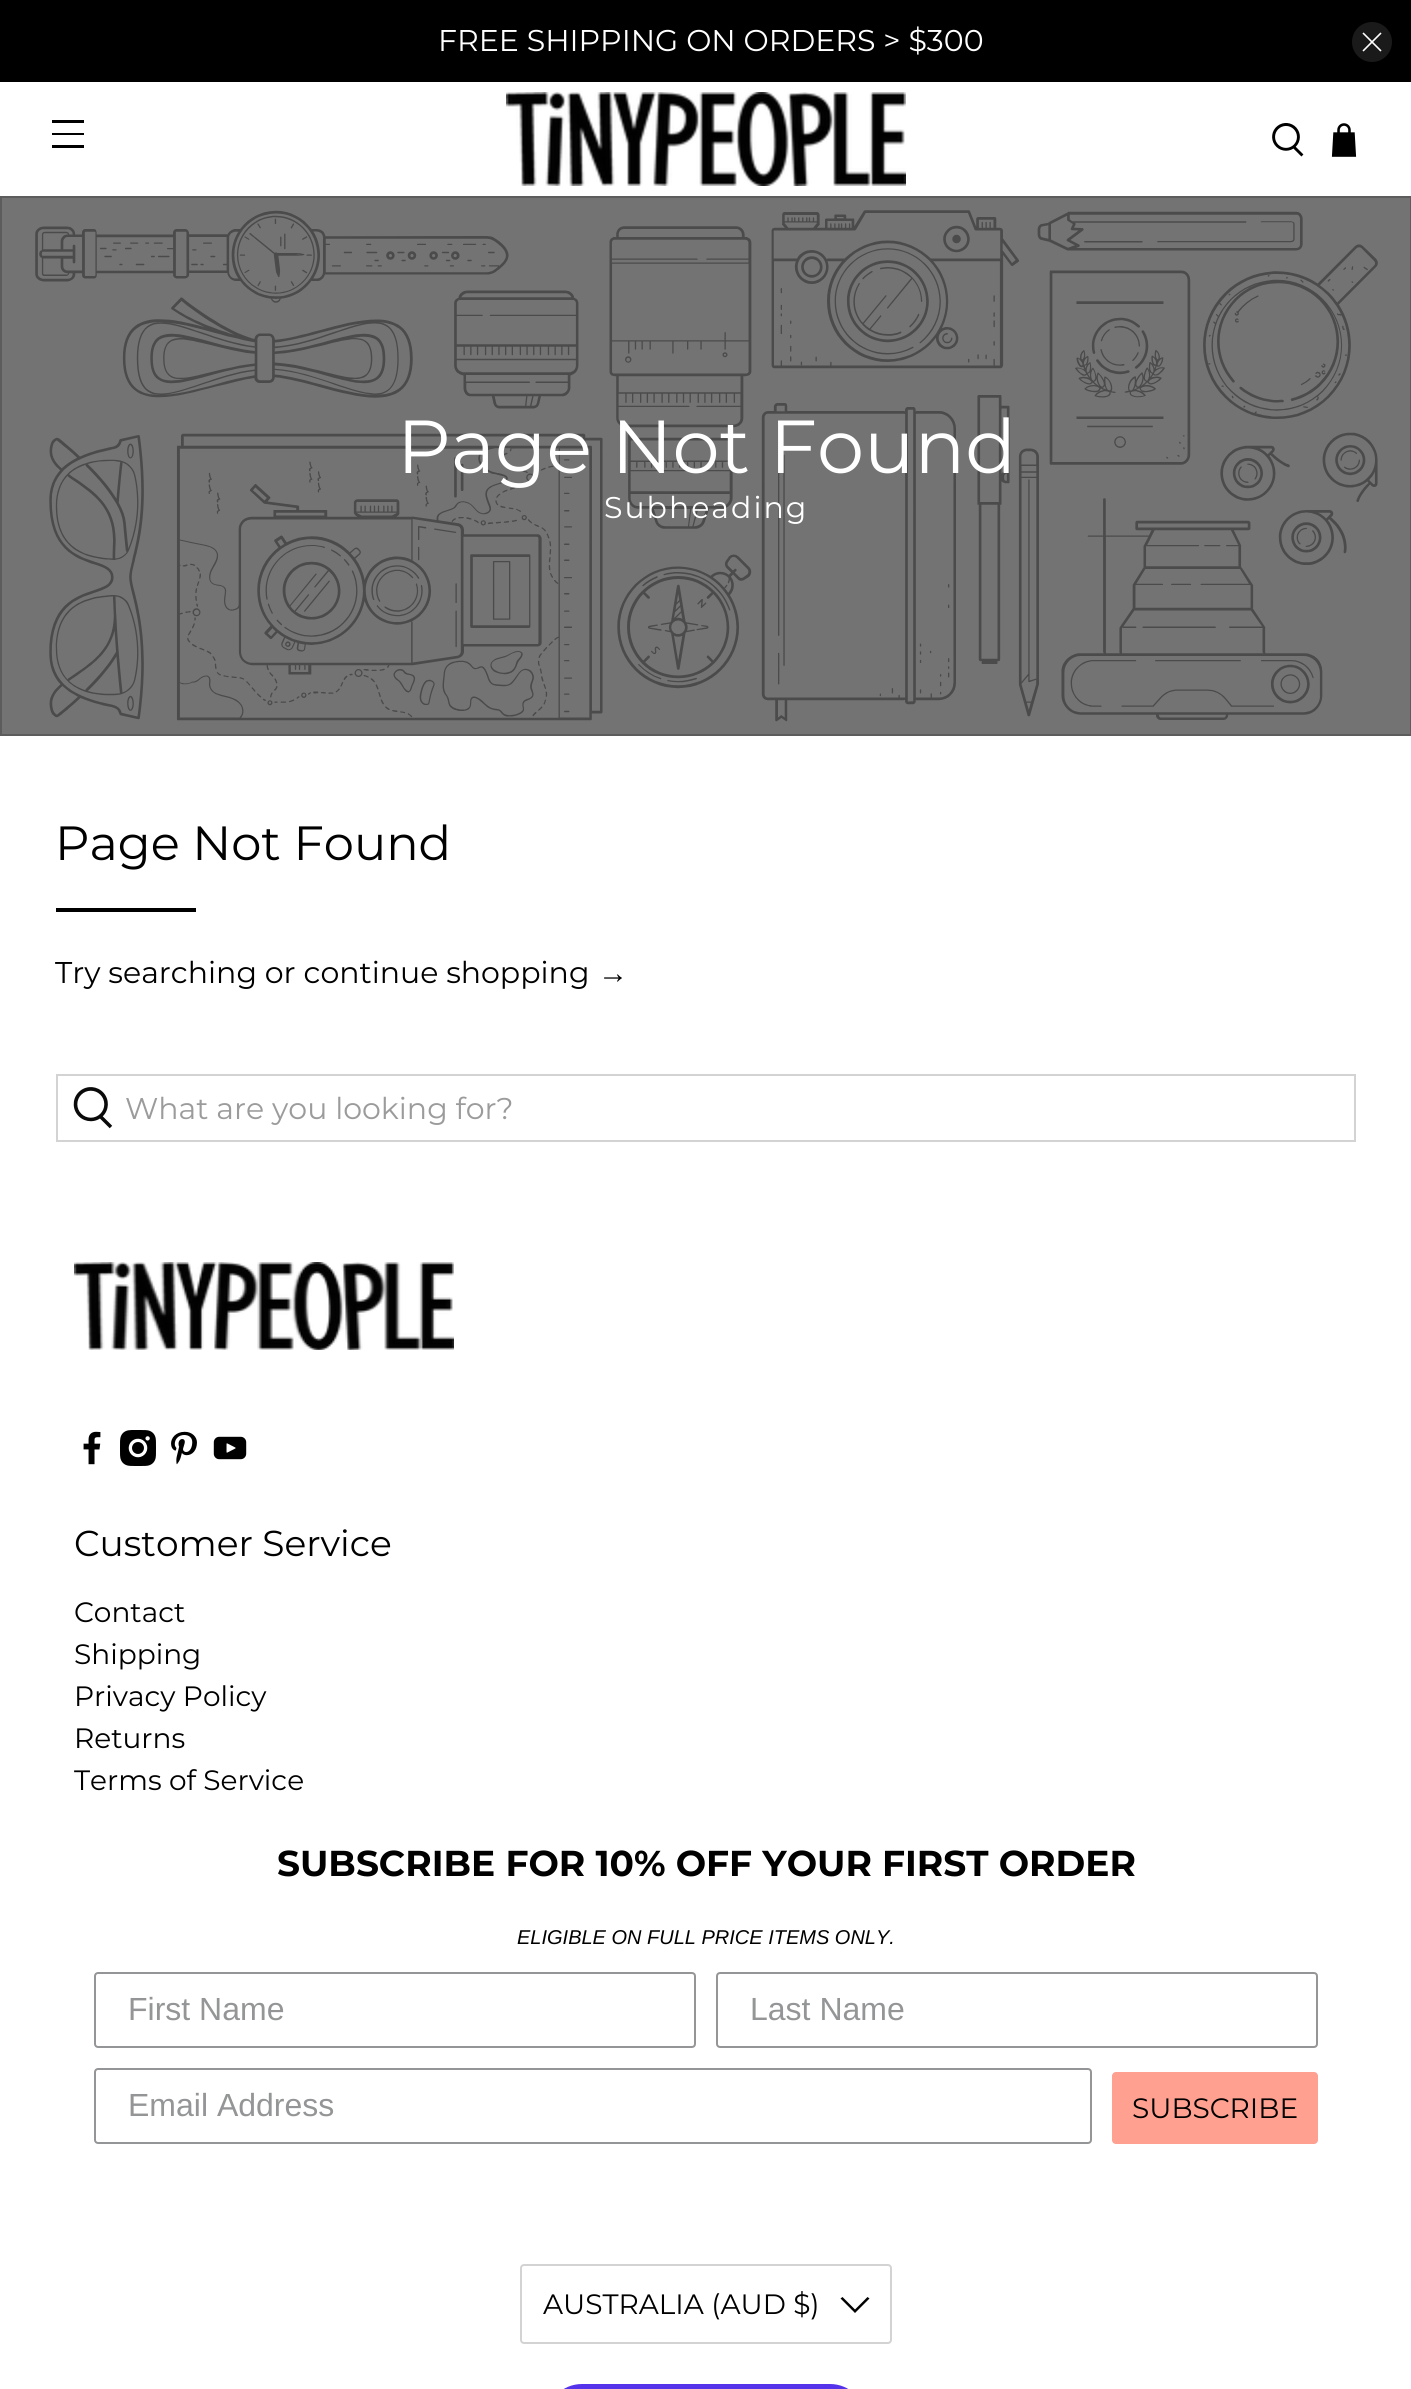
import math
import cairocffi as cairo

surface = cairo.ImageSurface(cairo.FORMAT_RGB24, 1411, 2389)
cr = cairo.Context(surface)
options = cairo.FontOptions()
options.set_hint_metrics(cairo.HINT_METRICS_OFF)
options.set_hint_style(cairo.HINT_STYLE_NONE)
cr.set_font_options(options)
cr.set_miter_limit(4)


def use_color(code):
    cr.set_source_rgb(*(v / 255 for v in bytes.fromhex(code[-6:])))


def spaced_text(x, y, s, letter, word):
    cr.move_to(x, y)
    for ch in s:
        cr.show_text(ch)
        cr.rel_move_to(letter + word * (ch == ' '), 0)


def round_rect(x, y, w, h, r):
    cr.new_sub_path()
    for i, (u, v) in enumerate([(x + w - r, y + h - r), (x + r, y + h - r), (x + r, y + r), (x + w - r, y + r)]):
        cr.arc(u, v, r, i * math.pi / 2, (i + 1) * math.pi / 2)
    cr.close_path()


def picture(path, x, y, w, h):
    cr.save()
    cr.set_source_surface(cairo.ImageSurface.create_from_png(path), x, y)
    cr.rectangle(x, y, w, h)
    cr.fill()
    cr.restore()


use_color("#ffffff")
cr.paint()
use_color("#000000")
cr.rectangle(0, 0, 1411, 82)
cr.fill()
cr.select_font_face("Montserrat Thin")
cr.set_font_size(30)
use_color("#ffffff")
cr.move_to(438, 51)
cr.show_text("FREE SHIPPING ON ORDERS > $300")
use_color("#1a1a1a")
cr.new_path()
cr.arc(1372, 42, 20, 0, 2 * math.pi)
cr.fill()
picture("img1.png", 1362, 32, 20, 20)
use_color("#000000")
cr.rectangle(52, 120, 32, 3)
cr.fill()
cr.rectangle(52, 133, 32, 2)
cr.fill()
cr.rectangle(52, 145, 32, 3)
cr.fill()
picture("img2.png", 506, 92, 400, 94)
picture("img3.png", 1272, 123, 32, 34)
picture("img4.png", 1331, 123, 26, 34)
use_color("#737373")
cr.rectangle(1, 197, 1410, 538)
cr.fill_preserve()
use_color("#5c5c5c")
cr.stroke()
picture("img5.png", 35, 210, 1343, 512)
cr.set_font_size(75)
use_color("#ffffff")
cr.move_to(397, 473)
cr.show_text("Page Not Found")
cr.set_font_size(30)
spaced_text(604, 518, "Subheading", 2, 0)
cr.set_font_size(48)
use_color("#000000")
cr.move_to(55, 860)
cr.show_text("Page Not Found")
cr.rectangle(56, 908, 140, 4)
cr.fill()
cr.set_font_size(30)
cr.move_to(55, 983)
cr.show_text("Try searching or continue shopping")
cr.select_font_face("Liberation Sans")
cr.move_to(598, 983)
cr.show_text("→")
cr.rectangle(57, 1075, 1298, 66)
use_color("#d3d3d3")
cr.stroke()
picture("img6.png", 73, 1087, 40, 42)
cr.select_font_face("Montserrat Thin")
use_color("#9b9b9b")
cr.move_to(125, 1119)
cr.show_text("What are you looking for?")
picture("img7.png", 74, 1262, 380, 88)
picture("img8.png", 83, 1431, 18, 34)
picture("img9.png", 120, 1430, 36, 36)
picture("img10.png", 171, 1431, 26, 34)
picture("img11.png", 213, 1436, 34, 24)
cr.set_font_size(36)
use_color("#000000")
cr.move_to(74, 1556)
cr.show_text("Customer Service")
cr.set_font_size(28)
cr.move_to(74, 1622)
cr.show_text("Contact")
cr.move_to(74, 1664)
cr.show_text("Shipping")
cr.move_to(74, 1706)
cr.show_text("Privacy Policy")
cr.move_to(74, 1748)
cr.show_text("Returns")
cr.move_to(74, 1790)
cr.show_text("Terms of Service")
cr.select_font_face("Montserrat", cairo.FONT_SLANT_NORMAL, cairo.FONT_WEIGHT_BOLD)
cr.set_font_size(36)
cr.move_to(277, 1876)
cr.show_text("SUBSCRIBE FOR 10% OFF YOUR FIRST ORDER")
cr.select_font_face("Liberation Sans", cairo.FONT_SLANT_ITALIC)
cr.set_font_size(20)
cr.move_to(517, 1944)
cr.show_text("ELIGIBLE ON FULL PRICE ITEMS ONLY.")
round_rect(95, 1973, 600, 74, 3)
use_color("#949596")
cr.stroke()
cr.select_font_face("Liberation Sans")
cr.set_font_size(32)
cr.move_to(128, 2020)
cr.show_text("First Name")
round_rect(717, 1973, 600, 74, 3)
cr.stroke()
cr.move_to(750, 2020)
cr.show_text("Last Name")
round_rect(95, 2069, 996, 74, 3)
cr.stroke()
cr.move_to(128, 2116)
cr.show_text("Email Address")
use_color("#ffa090")
round_rect(1112, 2072, 206, 72, 4)
cr.fill()
cr.select_font_face("Montserrat Thin")
cr.set_font_size(28)
use_color("#000000")
cr.move_to(1132, 2118)
cr.show_text("SUBSCRIBE")
round_rect(521, 2265, 370, 78, 3)
use_color("#d3d3d3")
cr.stroke()
use_color("#000000")
cr.move_to(543, 2314)
cr.show_text("AUSTRALIA (AUD $)")
cr.new_path()
cr.move_to(855, 2313)
cr.line_to(840.5, 2298.5)
cr.line_to(842.5, 2297)
cr.line_to(855, 2309.5)
cr.line_to(867.5, 2297)
cr.line_to(869.5, 2298.5)
cr.close_path()
cr.fill()
use_color("#5433eb")
round_rect(546, 2384, 320, 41, 36)
cr.fill()
surface.write_to_png("result.png")
